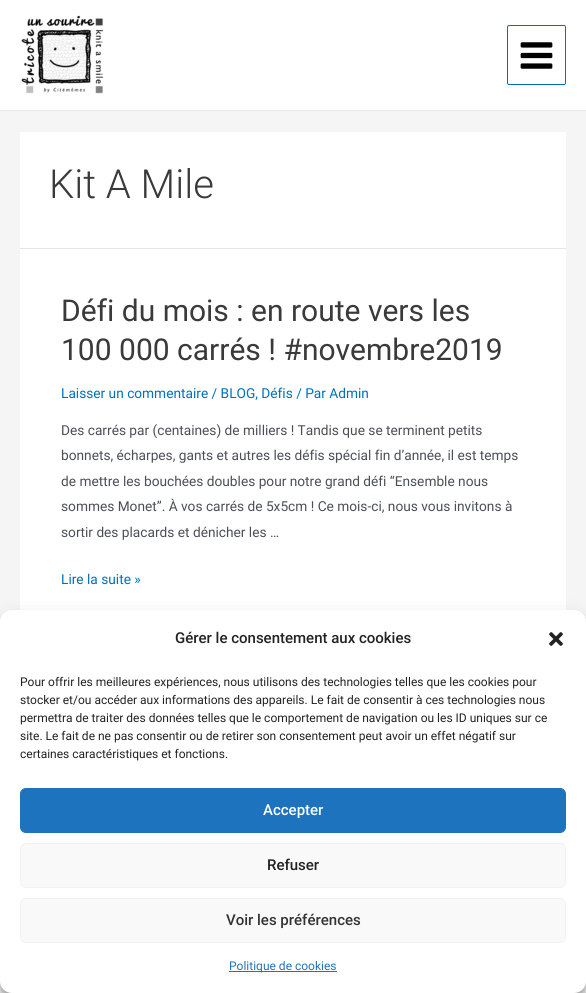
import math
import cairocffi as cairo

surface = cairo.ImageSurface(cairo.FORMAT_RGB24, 586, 993)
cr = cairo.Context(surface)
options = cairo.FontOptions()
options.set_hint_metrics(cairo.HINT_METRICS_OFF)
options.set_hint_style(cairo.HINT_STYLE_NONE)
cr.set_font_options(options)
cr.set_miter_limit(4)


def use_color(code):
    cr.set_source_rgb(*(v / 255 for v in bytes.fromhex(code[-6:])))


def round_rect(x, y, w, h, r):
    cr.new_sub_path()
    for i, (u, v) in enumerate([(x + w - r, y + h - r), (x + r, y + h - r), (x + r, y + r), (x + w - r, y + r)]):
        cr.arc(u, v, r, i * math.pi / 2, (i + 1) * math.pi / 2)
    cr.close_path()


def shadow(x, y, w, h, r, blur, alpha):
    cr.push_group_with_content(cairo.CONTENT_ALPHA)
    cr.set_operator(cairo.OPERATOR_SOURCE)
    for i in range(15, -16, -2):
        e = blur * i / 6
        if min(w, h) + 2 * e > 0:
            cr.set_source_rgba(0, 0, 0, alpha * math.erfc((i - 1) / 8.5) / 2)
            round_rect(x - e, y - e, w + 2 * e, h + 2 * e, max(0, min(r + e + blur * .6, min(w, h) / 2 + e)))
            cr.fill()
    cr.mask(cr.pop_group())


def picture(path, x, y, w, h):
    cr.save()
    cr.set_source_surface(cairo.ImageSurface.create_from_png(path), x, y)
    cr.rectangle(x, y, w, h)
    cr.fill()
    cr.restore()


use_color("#f5f5f5")
cr.paint()
use_color("#ffffff")
cr.rectangle(0, 0, 586, 110)
cr.fill()
use_color("#eaeaea")
cr.rectangle(0, 110, 586, 1)
cr.fill()
picture("img1.png", 21, 15, 83, 79)
round_rect(507.5, 25.5, 58, 59, 1.5)
use_color("#0170b9")
cr.set_line_width(1)
cr.stroke()
picture("img2.png", 520, 42, 33, 27)
use_color("#ffffff")
cr.rectangle(20, 132, 546, 116)
cr.fill()
use_color("#e5e5e5")
cr.rectangle(20, 248, 546, 1)
cr.fill()
cr.select_font_face("Roboto Light")
cr.set_font_size(40)
use_color("#3a3a3a")
cr.move_to(49, 198)
cr.show_text("Kit A Mile")
use_color("#ffffff")
cr.rectangle(20, 249, 546, 361)
cr.fill()
cr.select_font_face("Roboto")
cr.set_font_size(30)
use_color("#3a3a3a")
cr.move_to(61, 321)
cr.show_text("Défi du mois : en route vers les")
cr.move_to(61, 360)
cr.show_text("100 000 carrés ! #novembre2019")
cr.set_font_size(13.7)
use_color("#0170b9")
cr.move_to(61, 398)
cr.show_text("Laisser un commentaire / BLOG, Défis / Par Admin")
use_color("#4b4f58")
cr.move_to(61, 435)
cr.show_text("Des carrés par (centaines) de milliers ! Tandis que se terminent petits")
cr.move_to(61, 460)
cr.show_text("bonnets, écharpes, gants et autres les défis spécial fin d’année, il est temps")
cr.move_to(61, 486)
cr.show_text("de mettre les bouchées doubles pour notre grand défi “Ensemble nous")
cr.move_to(61, 511)
cr.show_text("sommes Monet”. À vos carrés de 5x5cm ! Ce mois-ci, nous vous invitons à")
cr.move_to(61, 537)
cr.show_text("sortir des placards et dénicher les …")
use_color("#0170b9")
cr.move_to(61, 584)
cr.show_text("Lire la suite »")
use_color("#f9f9f9")
cr.rectangle(0, 981, 586, 12)
cr.fill()
use_color("#000000")
shadow(0, 616, 586, 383, 12, 3, 0.23)
shadow(0, 620, 586, 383, 12, 10, 0.19)
use_color("#ffffff")
round_rect(0, 610, 586, 383, 12)
cr.fill()
cr.select_font_face("Roboto Medium")
cr.set_font_size(15)
use_color("#222222")
cr.move_to(175, 643)
cr.show_text("Gérer le consentement aux cookies")
picture("img3.png", 549, 632, 14, 14)
cr.select_font_face("Roboto")
cr.set_font_size(12)
cr.move_to(20, 686)
cr.show_text("Pour offrir les meilleures expériences, nous utilisons des technologies telles que les cookies pour")
cr.move_to(20, 704)
cr.show_text("stocker et/ou accéder aux informations des appareils. Le fait de consentir à ces technologies nous")
cr.move_to(20, 722)
cr.show_text("permettra de traiter des données telles que le comportement de navigation ou les ID uniques sur ce")
cr.move_to(20, 740)
cr.show_text("site. Le fait de ne pas consentir ou de retirer son consentement peut avoir un effet négatif sur")
cr.move_to(20, 758)
cr.show_text("certaines caractéristiques et fonctions.")
use_color("#1e73be")
round_rect(20.5, 788.5, 545, 44, 5.5)
cr.fill_preserve()
cr.stroke()
cr.select_font_face("Roboto Medium")
cr.set_font_size(15)
use_color("#ffffff")
cr.move_to(263, 815)
cr.show_text("Accepter")
use_color("#f9f9f9")
round_rect(20.5, 843.5, 545, 44, 5.5)
cr.fill_preserve()
use_color("#f2f2f2")
cr.stroke()
use_color("#222222")
cr.move_to(267, 870)
cr.show_text("Refuser")
use_color("#f9f9f9")
round_rect(20.5, 898.5, 545, 44, 5.5)
cr.fill_preserve()
use_color("#f2f2f2")
cr.stroke()
use_color("#333333")
cr.move_to(226, 925)
cr.show_text("Voir les préférences")
use_color("#1e73be")
cr.rectangle(229, 971, 108, 1)
cr.fill()
cr.select_font_face("Roboto")
cr.set_font_size(12)
cr.move_to(229, 970)
cr.show_text("Politique de cookies")
surface.write_to_png("result.png")
